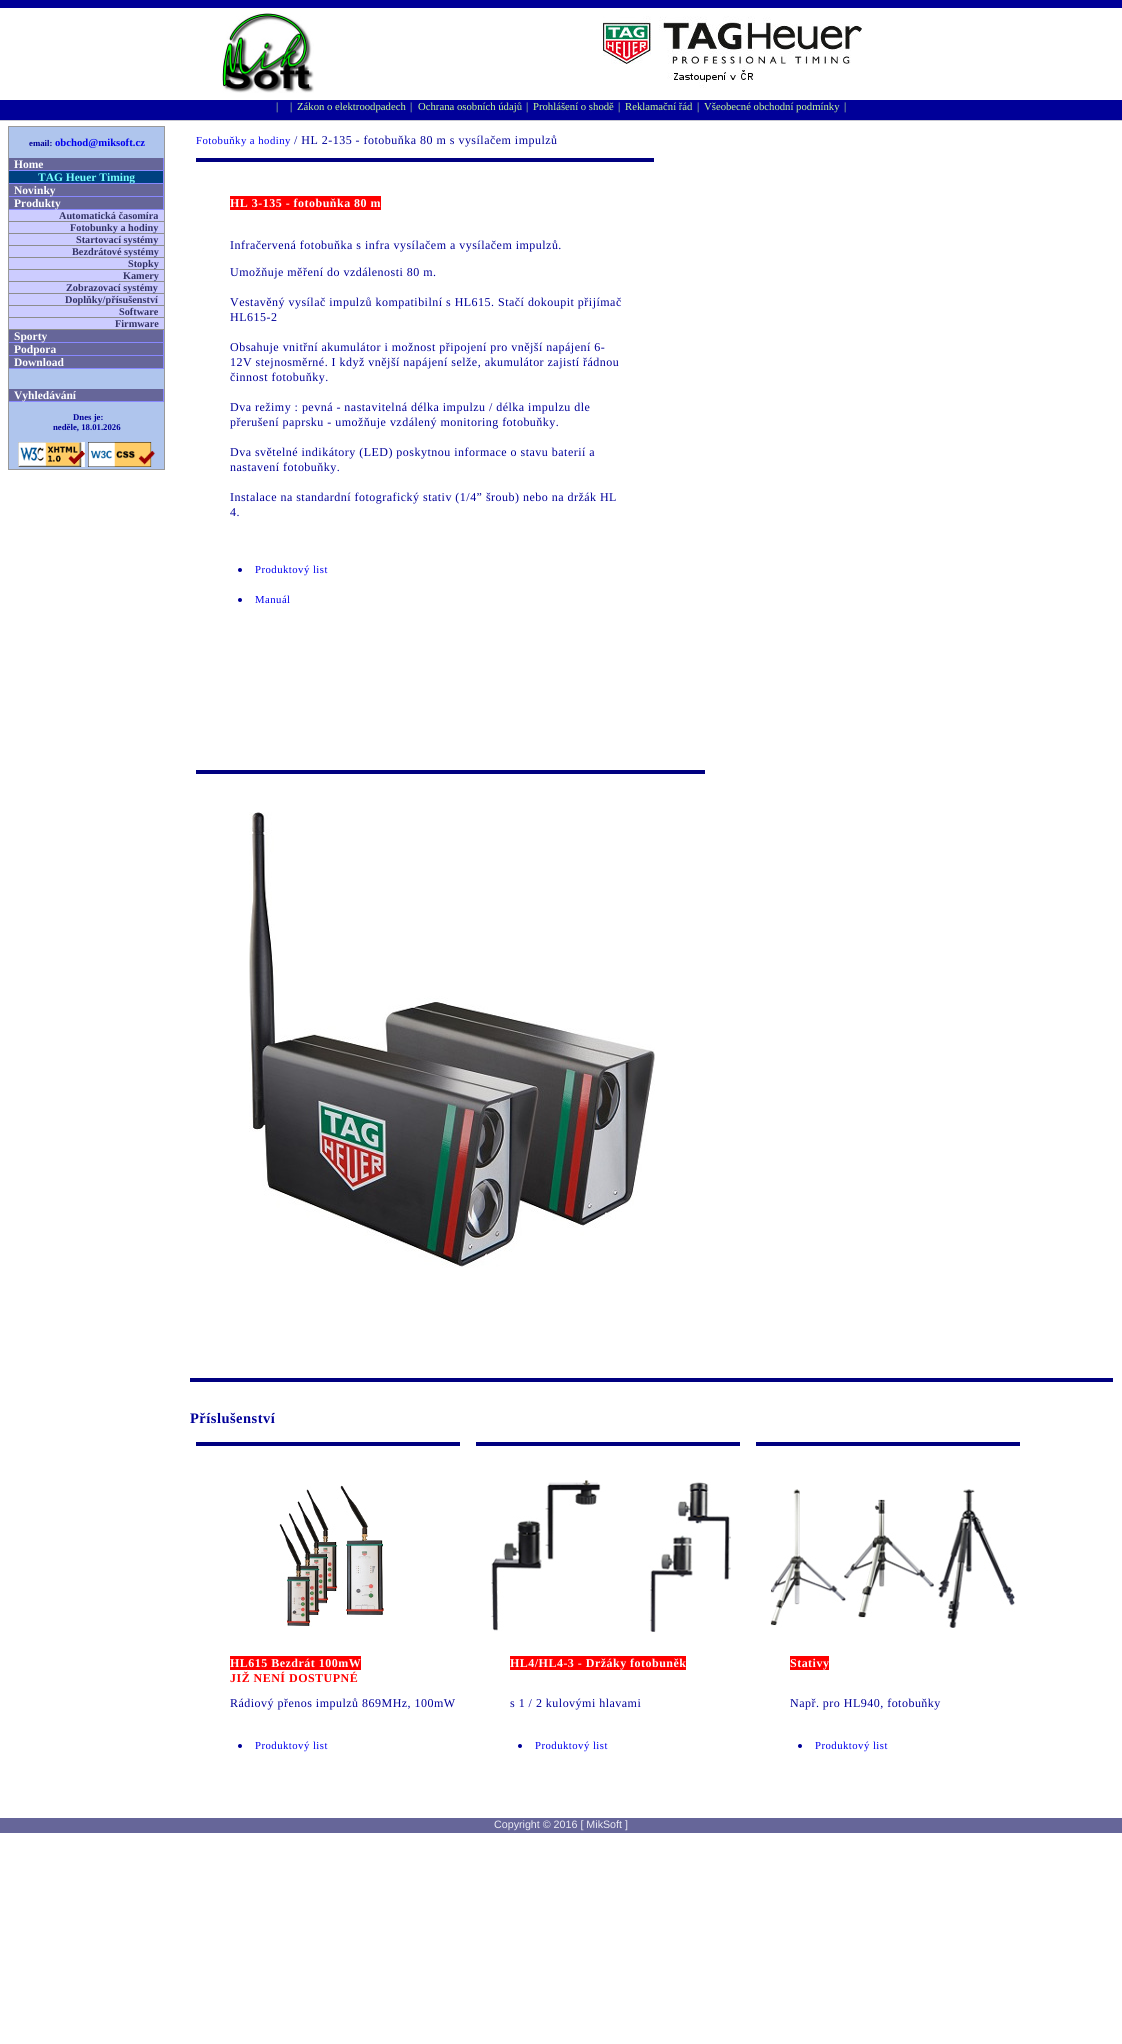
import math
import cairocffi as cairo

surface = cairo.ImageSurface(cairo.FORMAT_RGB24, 1122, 2044)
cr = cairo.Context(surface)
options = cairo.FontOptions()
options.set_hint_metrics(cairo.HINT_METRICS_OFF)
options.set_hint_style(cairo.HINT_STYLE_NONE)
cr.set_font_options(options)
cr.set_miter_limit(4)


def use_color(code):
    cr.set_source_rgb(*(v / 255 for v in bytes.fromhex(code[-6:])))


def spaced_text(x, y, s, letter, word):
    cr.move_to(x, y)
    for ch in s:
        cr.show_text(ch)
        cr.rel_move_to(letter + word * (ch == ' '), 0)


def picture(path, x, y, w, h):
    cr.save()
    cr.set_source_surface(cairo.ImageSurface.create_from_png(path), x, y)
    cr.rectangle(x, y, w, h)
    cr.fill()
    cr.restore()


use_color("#ffffff")
cr.paint()
use_color("#000098")
cr.rectangle(0, 0, 1122, 8)
cr.fill()
picture("img1.png", 222, 13, 92, 80)
picture("img2.png", 603, 16, 260, 72)
use_color("#000099")
cr.rectangle(0, 100, 1122, 20)
cr.fill()
use_color("#c8c8d2")
cr.rectangle(0, 120, 1122, 1)
cr.fill()
cr.select_font_face("Liberation Serif")
cr.set_font_size(11)
use_color("#ccff99")
cr.move_to(276, 110)
cr.show_text("|")
cr.move_to(290, 110)
cr.show_text("|")
cr.set_font_size(10.7)
cr.move_to(297, 110)
cr.show_text("Zákon o elektroodpadech")
cr.set_font_size(11)
cr.move_to(410, 110)
cr.show_text("|")
cr.set_font_size(10.7)
cr.move_to(418, 110)
cr.show_text("Ochrana osobních údajů")
cr.set_font_size(11)
cr.move_to(526, 110)
cr.show_text("|")
cr.set_font_size(10.7)
cr.move_to(533, 110)
cr.show_text("Prohlášení o shodě")
cr.set_font_size(11)
cr.move_to(618, 110)
cr.show_text("|")
cr.set_font_size(10.7)
cr.move_to(625, 110)
cr.show_text("Reklamační řád")
cr.set_font_size(11)
cr.move_to(697, 110)
cr.show_text("|")
cr.set_font_size(10.7)
cr.move_to(704, 110)
cr.show_text("Všeobecné obchodní podmínky")
cr.set_font_size(11)
cr.move_to(844, 110)
cr.show_text("|")
use_color("#afc5ed")
cr.rectangle(8.5, 126.5, 156, 343)
cr.fill_preserve()
use_color("#999999")
cr.set_line_width(1)
cr.stroke()
cr.select_font_face("Liberation Serif", cairo.FONT_SLANT_NORMAL, cairo.FONT_WEIGHT_BOLD)
cr.set_font_size(8.75)
use_color("#000099")
cr.move_to(29, 146)
cr.show_text("email:")
cr.set_font_size(10.7)
use_color("#0000ee")
cr.move_to(55, 146)
cr.show_text("obchod@miksoft.cz")
use_color("#666699")
cr.rectangle(9, 158, 154, 12)
cr.fill()
use_color("#8888ff")
cr.rectangle(163, 158, 1, 52)
cr.fill()
cr.rectangle(9, 170, 155, 1)
cr.fill()
cr.set_font_size(11.5)
use_color("#ffffff")
cr.move_to(14, 168)
cr.show_text("Home")
use_color("#004180")
cr.rectangle(9, 171, 154, 12)
cr.fill()
use_color("#8888ff")
cr.rectangle(9, 183, 155, 1)
cr.fill()
use_color("#77fffd")
cr.move_to(38, 181)
cr.show_text("TAG Heuer Timing")
use_color("#666699")
cr.rectangle(9, 184, 154, 12)
cr.fill()
use_color("#8888ff")
cr.rectangle(9, 196, 155, 1)
cr.fill()
use_color("#ffffff")
cr.move_to(14, 194)
cr.show_text("Novinky")
use_color("#666699")
cr.rectangle(9, 197, 154, 12)
cr.fill()
use_color("#8888ff")
cr.rectangle(9, 209, 155, 1)
cr.fill()
use_color("#ffffff")
cr.move_to(14, 207)
cr.show_text("Produkty")
use_color("#ccccff")
cr.rectangle(9, 210, 155, 11)
cr.fill()
use_color("#8d8d8d")
cr.rectangle(9, 221, 155, 1)
cr.fill()
cr.set_font_size(10.25)
use_color("#333366")
cr.move_to(59, 219)
cr.show_text("Automatická časomíra")
use_color("#ccccff")
cr.rectangle(9, 222, 155, 11)
cr.fill()
use_color("#8d8d8d")
cr.rectangle(9, 233, 155, 1)
cr.fill()
use_color("#333366")
cr.move_to(70, 231)
cr.show_text("Fotobunky a hodiny")
use_color("#ccccff")
cr.rectangle(9, 234, 155, 11)
cr.fill()
use_color("#8d8d8d")
cr.rectangle(9, 245, 155, 1)
cr.fill()
use_color("#333366")
cr.move_to(76, 243)
cr.show_text("Startovací systémy")
use_color("#ccccff")
cr.rectangle(9, 246, 155, 11)
cr.fill()
use_color("#8d8d8d")
cr.rectangle(9, 257, 155, 1)
cr.fill()
use_color("#333366")
cr.move_to(72, 255)
cr.show_text("Bezdrátové systémy")
use_color("#ccccff")
cr.rectangle(9, 258, 155, 11)
cr.fill()
use_color("#8d8d8d")
cr.rectangle(9, 269, 155, 1)
cr.fill()
use_color("#333366")
cr.move_to(128, 267)
cr.show_text("Stopky")
use_color("#ccccff")
cr.rectangle(9, 270, 155, 11)
cr.fill()
use_color("#8d8d8d")
cr.rectangle(9, 281, 155, 1)
cr.fill()
use_color("#333366")
cr.move_to(123, 279)
cr.show_text("Kamery")
use_color("#ccccff")
cr.rectangle(9, 282, 155, 11)
cr.fill()
use_color("#8d8d8d")
cr.rectangle(9, 293, 155, 1)
cr.fill()
use_color("#333366")
cr.move_to(66, 291)
cr.show_text("Zobrazovací systémy")
use_color("#ccccff")
cr.rectangle(9, 294, 155, 11)
cr.fill()
use_color("#8d8d8d")
cr.rectangle(9, 305, 155, 1)
cr.fill()
use_color("#333366")
cr.move_to(65, 303)
cr.show_text("Doplňky/přísušenství")
use_color("#ccccff")
cr.rectangle(9, 306, 155, 11)
cr.fill()
use_color("#8d8d8d")
cr.rectangle(9, 317, 155, 1)
cr.fill()
use_color("#333366")
cr.move_to(119, 315)
cr.show_text("Software")
use_color("#ccccff")
cr.rectangle(9, 318, 155, 11)
cr.fill()
use_color("#8d8d8d")
cr.rectangle(9, 329, 155, 1)
cr.fill()
use_color("#333366")
cr.move_to(115, 327)
cr.show_text("Firmware")
use_color("#666699")
cr.rectangle(9, 330, 154, 12)
cr.fill()
use_color("#8888ff")
cr.rectangle(163, 330, 1, 39)
cr.fill()
cr.rectangle(9, 342, 155, 1)
cr.fill()
cr.set_font_size(11.5)
use_color("#ffffff")
cr.move_to(14, 340)
cr.show_text("Sporty")
use_color("#666699")
cr.rectangle(9, 343, 154, 12)
cr.fill()
use_color("#8888ff")
cr.rectangle(9, 355, 155, 1)
cr.fill()
use_color("#ffffff")
cr.move_to(14, 353)
cr.show_text("Podpora")
use_color("#666699")
cr.rectangle(9, 356, 154, 12)
cr.fill()
use_color("#8888ff")
cr.rectangle(9, 368, 155, 1)
cr.fill()
use_color("#ffffff")
cr.move_to(14, 366)
cr.show_text("Download")
use_color("#666699")
cr.rectangle(9, 389, 154, 12)
cr.fill()
use_color("#8888ff")
cr.rectangle(163, 389, 1, 13)
cr.fill()
cr.rectangle(9, 401, 155, 1)
cr.fill()
use_color("#ffffff")
cr.move_to(14, 399)
cr.show_text("Vyhledávání")
cr.set_font_size(8.75)
use_color("#000099")
cr.move_to(73, 420)
cr.show_text("Dnes je:")
cr.move_to(53, 430)
cr.show_text("neděle, 18.01.2026")
picture("img3.png", 18, 442, 67, 25)
picture("img4.png", 88, 442, 67, 25)
cr.select_font_face("Liberation Serif")
cr.set_font_size(10.7)
use_color("#0000ee")
spaced_text(196, 144, "Fotobuňky a hodiny", 0.48, 0)
cr.set_font_size(12)
use_color("#000099")
spaced_text(294, 144, "/ HL 2-135 - fotobuňka 80 m s vysílačem impulzů", 0.48, 0)
use_color("#000080")
cr.rectangle(196, 158, 458, 4)
cr.fill()
use_color("#ff0000")
cr.rectangle(230, 196, 151, 14)
cr.fill()
cr.select_font_face("Liberation Serif", cairo.FONT_SLANT_NORMAL, cairo.FONT_WEIGHT_BOLD)
use_color("#ffffff")
spaced_text(230, 207, "HL 3-135 - fotobuňka 80 m", 0.48, 0)
cr.select_font_face("Liberation Serif")
use_color("#000099")
spaced_text(230, 249, "Infračervená fotobuňka s infra vysílačem a vysílačem impulzů.", 0.48, 0)
spaced_text(230, 276, "Umožňuje měření do vzdálenosti 80 m.", 0.48, 0)
spaced_text(230, 306, "Vestavěný vysílač impulzů kompatibilní s HL615. Stačí dokoupit přijímač", 0.48, 0)
spaced_text(230, 321, "HL615-2", 0.48, 0)
spaced_text(230, 351, "Obsahuje vnitřní akumulátor i možnost připojení pro vnější napájení 6-", 0.48, 0)
spaced_text(230, 366, "12V stejnosměrné. I když vnější napájení selže, akumulátor zajistí řádnou", 0.48, 0)
spaced_text(230, 381, "činnost fotobuňky.", 0.48, 0)
spaced_text(230, 411, "Dva režimy : pevná - nastavitelná délka impulzu / délka impulzu dle", 0.48, 0)
spaced_text(230, 426, "přerušení paprsku - umožňuje vzdálený monitoring fotobuňky.", 0.48, 0)
spaced_text(230, 456, "Dva světelné indikátory (LED) poskytnou informace o stavu baterií a", 0.48, 0)
spaced_text(230, 471, "nastavení fotobuňky.", 0.48, 0)
spaced_text(230, 501, "Instalace na standardní fotografický stativ (1/4” šroub) nebo na držák HL", 0.48, 0)
spaced_text(230, 516, "4.", 0.48, 0)
cr.new_path()
cr.arc(240, 570, 2, 0, 2 * math.pi)
cr.fill()
cr.set_font_size(10.7)
use_color("#0000ee")
spaced_text(255, 573, "Produktový list", 0.48, 0)
use_color("#000099")
cr.new_path()
cr.arc(240, 600, 2, 0, 2 * math.pi)
cr.fill()
use_color("#0000ee")
spaced_text(255, 603, "Manuál", 0.48, 0)
use_color("#000080")
cr.rectangle(196, 770, 509, 4)
cr.fill()
picture("img5.png", 249, 812, 406, 456)
cr.rectangle(190, 1378, 923, 4)
cr.fill()
cr.select_font_face("Liberation Serif", cairo.FONT_SLANT_NORMAL, cairo.FONT_WEIGHT_BOLD)
cr.set_font_size(14.5)
use_color("#000099")
spaced_text(190, 1423, "Příslušenství", 0.48, 0)
use_color("#000080")
cr.rectangle(196, 1442, 264, 4)
cr.fill()
picture("img6.png", 279, 1485, 105, 142)
use_color("#ff0000")
cr.rectangle(230, 1656, 131, 14)
cr.fill()
cr.set_font_size(12)
use_color("#ffffff")
spaced_text(230, 1667, "HL615 Bezdrát 100mW", 0.48, 0)
use_color("#ff0000")
spaced_text(230, 1682, "JIŽ NENÍ DOSTUPNÉ", 0.48, 0)
cr.select_font_face("Liberation Serif")
use_color("#000099")
spaced_text(230, 1707, "Rádiový přenos impulzů 869MHz, 100mW", 0.48, 0)
cr.new_path()
cr.arc(240, 1746, 2, 0, 2 * math.pi)
cr.fill()
cr.set_font_size(10.7)
use_color("#0000ee")
spaced_text(255, 1749, "Produktový list", 0.48, 0)
use_color("#000080")
cr.rectangle(476, 1442, 264, 4)
cr.fill()
picture("img7.png", 491, 1480, 240, 152)
use_color("#ff0000")
cr.rectangle(510, 1656, 176, 14)
cr.fill()
cr.select_font_face("Liberation Serif", cairo.FONT_SLANT_NORMAL, cairo.FONT_WEIGHT_BOLD)
cr.set_font_size(12)
use_color("#ffffff")
spaced_text(510, 1667, "HL4/HL4-3 - Držáky fotobuněk", 0.48, 0)
cr.select_font_face("Liberation Serif")
use_color("#000099")
spaced_text(510, 1707, "s 1 / 2 kulovými hlavami", 0.48, 0)
cr.new_path()
cr.arc(520, 1746, 2, 0, 2 * math.pi)
cr.fill()
cr.set_font_size(10.7)
use_color("#0000ee")
spaced_text(535, 1749, "Produktový list", 0.48, 0)
use_color("#000080")
cr.rectangle(756, 1442, 264, 4)
cr.fill()
picture("img8.png", 770, 1489, 245, 139)
use_color("#ff0000")
cr.rectangle(790, 1656, 39, 14)
cr.fill()
cr.select_font_face("Liberation Serif", cairo.FONT_SLANT_NORMAL, cairo.FONT_WEIGHT_BOLD)
cr.set_font_size(12)
use_color("#ffffff")
spaced_text(790, 1667, "Stativy", 0.48, 0)
cr.select_font_face("Liberation Serif")
use_color("#000099")
spaced_text(790, 1707, "Např. pro HL940, fotobuňky", 0.48, 0)
cr.new_path()
cr.arc(800, 1746, 2, 0, 2 * math.pi)
cr.fill()
cr.set_font_size(10.7)
use_color("#0000ee")
spaced_text(815, 1749, "Produktový list", 0.48, 0)
use_color("#666699")
cr.rectangle(0, 1818, 1122, 15)
cr.fill()
cr.select_font_face("Liberation Sans")
use_color("#ededf6")
cr.move_to(494, 1828)
cr.show_text("Copyright © 2016 [ MikSoft ]")
surface.write_to_png("result.png")
